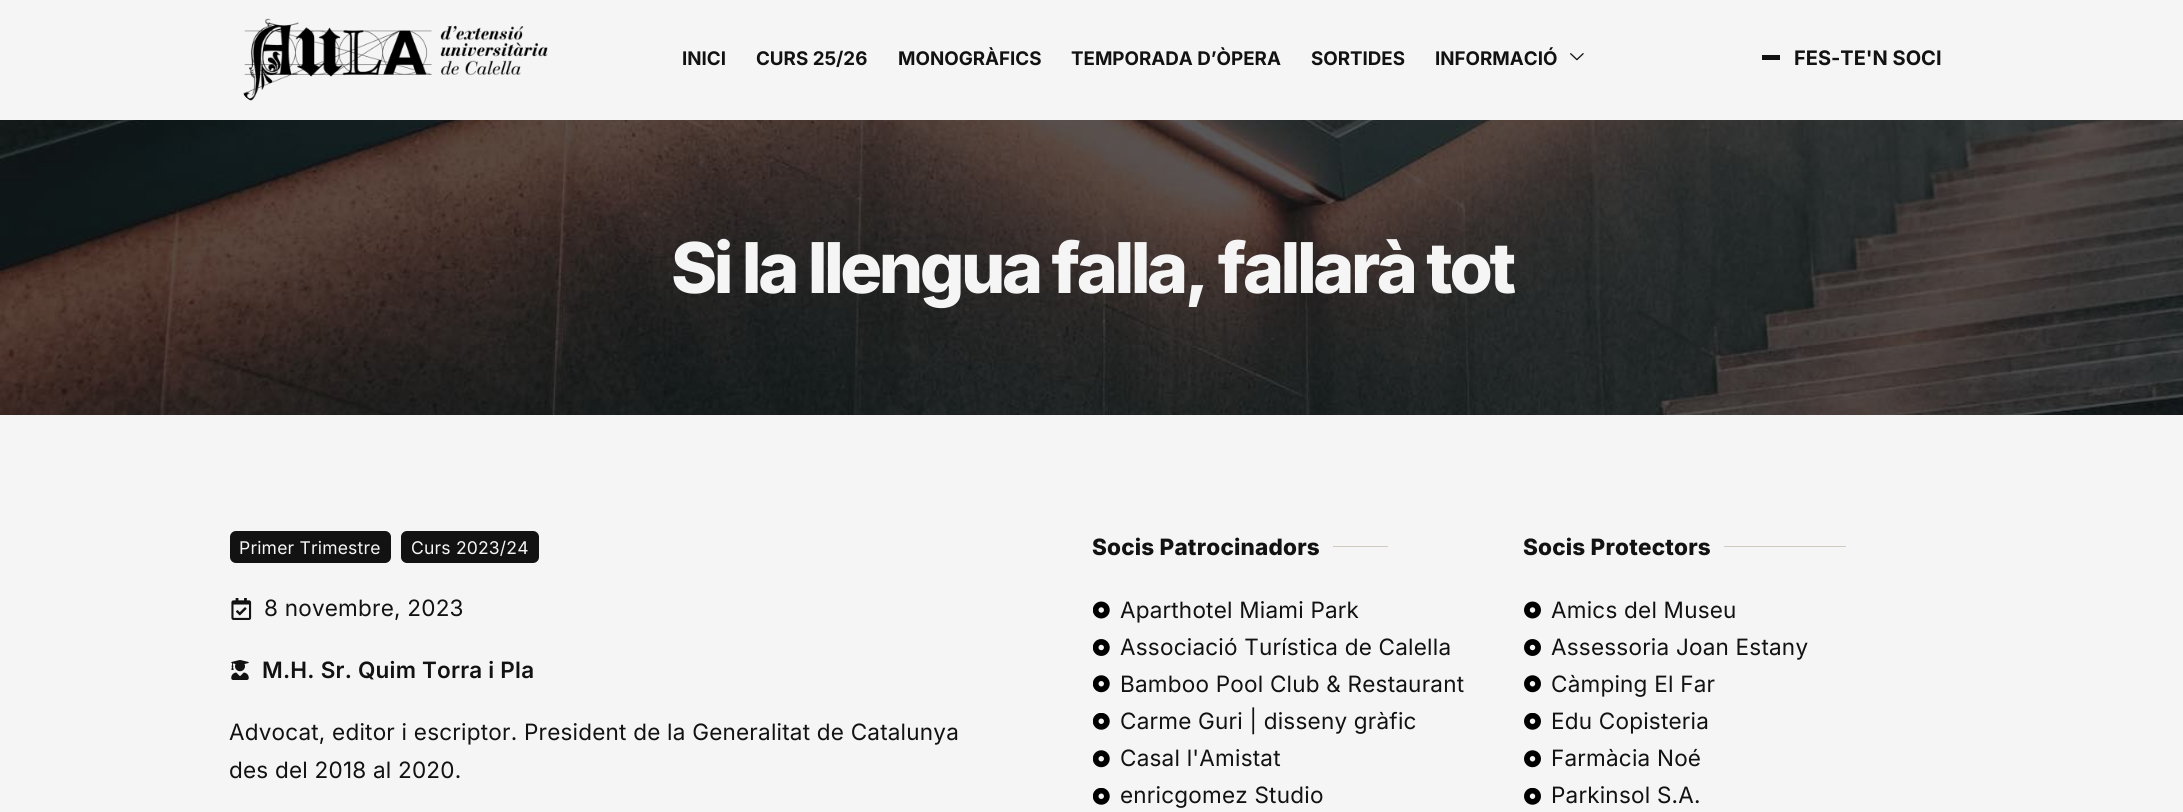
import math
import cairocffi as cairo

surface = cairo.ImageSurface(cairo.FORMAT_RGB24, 2183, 812)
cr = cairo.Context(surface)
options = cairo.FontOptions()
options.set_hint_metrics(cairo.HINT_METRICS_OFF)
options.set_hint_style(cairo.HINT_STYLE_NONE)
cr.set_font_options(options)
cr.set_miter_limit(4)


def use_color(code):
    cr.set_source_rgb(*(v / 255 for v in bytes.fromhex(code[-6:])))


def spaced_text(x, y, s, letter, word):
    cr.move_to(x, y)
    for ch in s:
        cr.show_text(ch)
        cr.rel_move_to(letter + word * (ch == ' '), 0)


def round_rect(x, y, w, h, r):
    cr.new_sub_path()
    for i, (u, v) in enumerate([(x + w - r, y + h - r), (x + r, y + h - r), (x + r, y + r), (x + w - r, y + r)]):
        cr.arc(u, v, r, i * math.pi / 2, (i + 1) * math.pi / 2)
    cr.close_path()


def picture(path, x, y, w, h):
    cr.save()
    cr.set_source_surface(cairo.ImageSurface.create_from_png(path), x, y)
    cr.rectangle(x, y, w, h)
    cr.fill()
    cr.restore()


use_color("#f5f5f5")
cr.paint()
picture("img1.png", 243, 18, 305, 83)
cr.select_font_face("Inter", cairo.FONT_SLANT_NORMAL, cairo.FONT_WEIGHT_BOLD)
cr.set_font_size(18.75)
use_color("#121212")
cr.move_to(682, 65)
cr.show_text("INICI")
cr.move_to(756, 65)
cr.show_text("CURS 25/26")
cr.move_to(898, 65)
cr.show_text("MONOGRÀFICS")
cr.move_to(1071, 65)
cr.show_text("TEMPORADA D’ÒPERA")
cr.move_to(1311, 65)
cr.show_text("SORTIDES")
cr.move_to(1435, 65)
cr.show_text("INFORMACIÓ")
picture("img2.png", 1570, 53, 14, 8)
cr.rectangle(1762, 55, 18, 5)
cr.fill()
cr.set_font_size(20)
cr.move_to(1794, 65)
cr.show_text("FES-TE'N SOCI")
picture("img3.png", 0, 120, 2183, 295)
cr.select_font_face("Inter ExtraBold")
cr.set_font_size(70)
use_color("#f5f5f5")
spaced_text(671, 293, "Si la llengua falla, fallarà tot", -3.5, 0)
use_color("#121212")
round_rect(230, 531, 161, 32, 6)
cr.fill()
cr.select_font_face("Inter")
cr.set_font_size(17.5)
use_color("#f5f5f5")
spaced_text(239, 554, "Primer Trimestre", 0.2, 0)
use_color("#121212")
round_rect(401, 531, 138, 32, 6)
cr.fill()
use_color("#f5f5f5")
spaced_text(411, 554, "Curs 2023/24", 0.2, 0)
picture("img4.png", 231, 598, 21, 22)
cr.set_font_size(22.5)
use_color("#121212")
spaced_text(264, 616, "8 novembre, 2023", 0.22, 0)
picture("img5.png", 231, 660, 18, 20)
cr.select_font_face("Inter SemiBold")
spaced_text(262, 678, "M.H. Sr. Quim Torra i Pla", 0.22, 0)
cr.select_font_face("Inter")
spaced_text(229, 740, "Advocat, editor i escriptor. President de la Generalitat de Catalunya", 0.22, 0)
spaced_text(229, 778, "des del 2018 al 2020.", 0.22, 0)
cr.select_font_face("Inter ExtraBold")
spaced_text(1092, 555, "Socis Patrocinadors", 0.2, 0)
use_color("#d0c9c0")
cr.rectangle(1333, 546, 55, 1)
cr.fill()
picture("img6.png", 1093, 601, 17, 18)
cr.select_font_face("Inter")
use_color("#121212")
spaced_text(1120, 618, "Aparthotel Miami Park", 0.22, 0)
picture("img7.png", 1093, 639, 17, 17)
spaced_text(1120, 655, "Associació Turística de Calella", 0.22, 0)
picture("img8.png", 1093, 675, 17, 18)
spaced_text(1120, 692, "Bamboo Pool Club & Restaurant", 0.22, 0)
picture("img9.png", 1093, 713, 17, 17)
spaced_text(1120, 729, "Carme Guri | disseny gràfic", 0.22, 0)
picture("img8.png", 1093, 750, 17, 18)
spaced_text(1120, 766, "Casal l'Amistat", 0.22, 0)
picture("img9.png", 1093, 788, 17, 17)
spaced_text(1120, 803, "enricgomez Studio", 0.22, 0)
cr.select_font_face("Inter ExtraBold")
spaced_text(1523, 555, "Socis Protectors", 0.2, 0)
use_color("#d0c9c0")
cr.rectangle(1724, 546, 122, 1)
cr.fill()
picture("img10.png", 1524, 601, 17, 18)
cr.select_font_face("Inter")
use_color("#121212")
spaced_text(1551, 618, "Amics del Museu", 0.22, 0)
picture("img11.png", 1524, 639, 17, 17)
spaced_text(1551, 655, "Assessoria Joan Estany", 0.22, 0)
picture("img12.png", 1524, 675, 17, 18)
spaced_text(1551, 692, "Càmping El Far", 0.22, 0)
picture("img13.png", 1524, 713, 17, 17)
spaced_text(1551, 729, "Edu Copisteria", 0.22, 0)
picture("img12.png", 1524, 750, 17, 18)
spaced_text(1551, 766, "Farmàcia Noé", 0.22, 0)
picture("img13.png", 1524, 788, 17, 17)
spaced_text(1551, 803, "Parkinsol S.A.", 0.22, 0)
surface.write_to_png("result.png")
